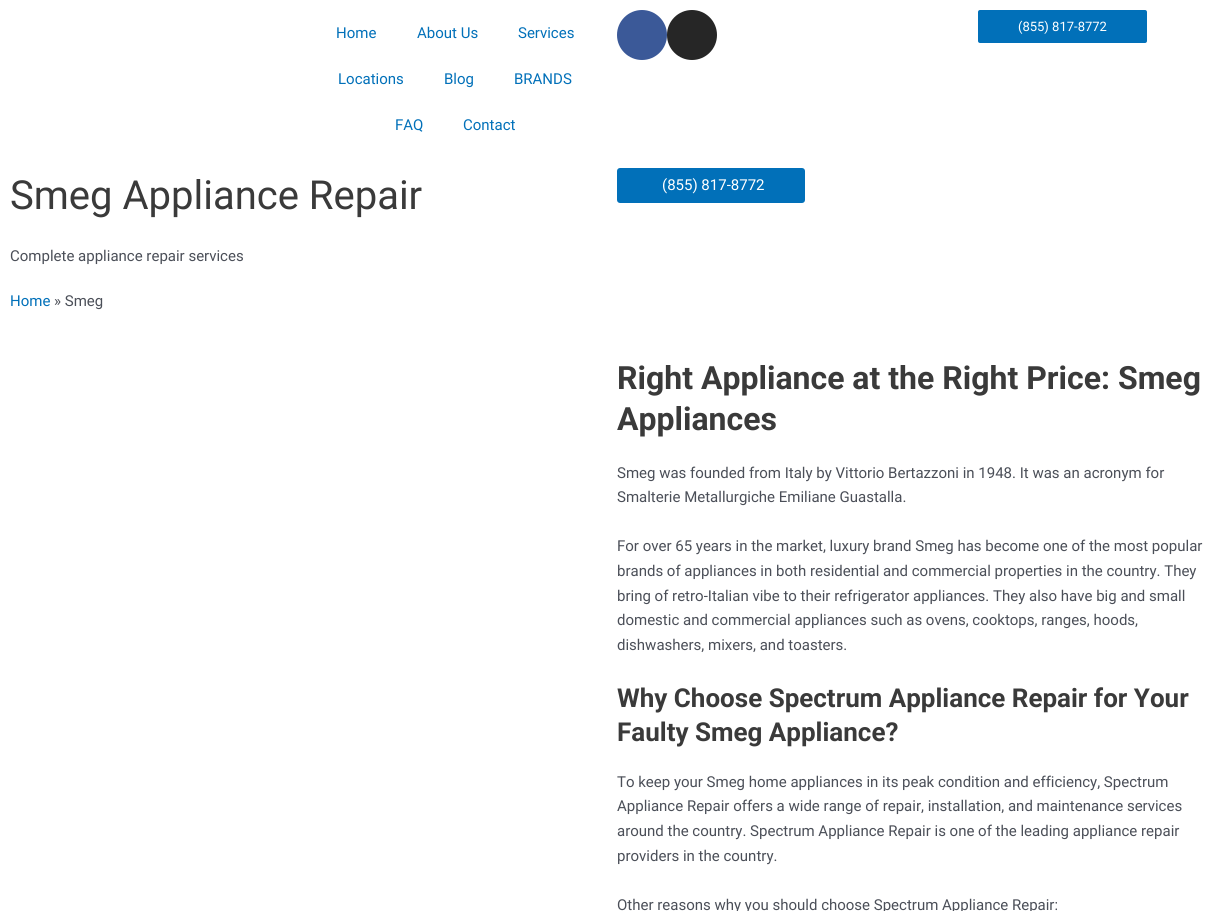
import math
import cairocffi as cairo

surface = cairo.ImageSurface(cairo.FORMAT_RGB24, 1214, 911)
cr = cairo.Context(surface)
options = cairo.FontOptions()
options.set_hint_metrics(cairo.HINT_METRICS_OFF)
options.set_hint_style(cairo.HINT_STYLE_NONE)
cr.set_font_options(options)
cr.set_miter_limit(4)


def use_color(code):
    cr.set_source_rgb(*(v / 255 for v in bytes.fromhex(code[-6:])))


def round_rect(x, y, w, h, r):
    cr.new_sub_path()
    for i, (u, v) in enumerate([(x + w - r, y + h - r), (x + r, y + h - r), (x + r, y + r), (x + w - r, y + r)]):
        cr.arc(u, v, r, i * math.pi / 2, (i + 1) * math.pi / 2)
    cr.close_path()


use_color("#ffffff")
cr.paint()
cr.select_font_face("Roboto")
cr.set_font_size(15)
use_color("#0170b9")
cr.move_to(336, 38)
cr.show_text("Home")
cr.move_to(417, 38)
cr.show_text("About Us")
cr.move_to(518, 38)
cr.show_text("Services")
cr.move_to(338, 84)
cr.show_text("Locations")
cr.move_to(444, 84)
cr.show_text("Blog")
cr.move_to(514, 84)
cr.show_text("BRANDS")
cr.move_to(395, 130)
cr.show_text("FAQ")
cr.move_to(463, 130)
cr.show_text("Contact")
use_color("#3b5998")
cr.new_path()
cr.arc(642, 35, 25, 0, 2 * math.pi)
cr.fill()
use_color("#262626")
cr.arc(692, 35, 25, 0, 2 * math.pi)
cr.fill()
use_color("#0170b9")
round_rect(978, 10, 169, 33, 2)
cr.fill()
cr.set_font_size(13)
use_color("#ffffff")
cr.move_to(1018, 31)
cr.show_text("(855) 817-8772")
cr.set_font_size(40)
use_color("#3a3a3a")
cr.move_to(10, 209)
cr.show_text("Smeg Appliance Repair")
cr.set_font_size(15)
use_color("#4b4f58")
cr.move_to(10, 261)
cr.show_text("Complete appliance repair services")
use_color("#0170b9")
cr.move_to(10, 306)
cr.show_text("Home")
use_color("#4b4f58")
cr.move_to(54, 306)
cr.show_text("» Smeg")
use_color("#0170b9")
round_rect(617, 168, 188, 35, 3)
cr.fill()
use_color("#ffffff")
cr.move_to(662, 190)
cr.show_text("(855) 817-8772")
cr.select_font_face("Roboto", cairo.FONT_SLANT_NORMAL, cairo.FONT_WEIGHT_BOLD)
cr.set_font_size(32)
use_color("#3a3a3a")
cr.move_to(617, 389)
cr.show_text("Right Appliance at the Right Price: Smeg")
cr.move_to(617, 430)
cr.show_text("Appliances")
cr.select_font_face("Roboto")
cr.set_font_size(15)
use_color("#4b4f58")
cr.move_to(617, 478)
cr.show_text("Smeg was founded from Italy by Vittorio Bertazzoni in 1948. It was an acronym for")
cr.move_to(617, 502)
cr.show_text("Smalterie Metallurgiche Emiliane Guastalla.")
cr.move_to(617, 551)
cr.show_text("For over 65 years in the market, luxury brand Smeg has become one of the most popular")
cr.move_to(617, 576)
cr.show_text("brands of appliances in both residential and commercial properties in the country. They")
cr.move_to(617, 601)
cr.show_text("bring of retro-Italian vibe to their refrigerator appliances. They also have big and small")
cr.move_to(617, 625)
cr.show_text("domestic and commercial appliances such as ovens, cooktops, ranges, hoods,")
cr.move_to(617, 650)
cr.show_text("dishwashers, mixers, and toasters.")
cr.select_font_face("Roboto", cairo.FONT_SLANT_NORMAL, cairo.FONT_WEIGHT_BOLD)
cr.set_font_size(26)
use_color("#3a3a3a")
cr.move_to(617, 707)
cr.show_text("Why Choose Spectrum Appliance Repair for Your")
cr.move_to(617, 741)
cr.show_text("Faulty Smeg Appliance?")
cr.select_font_face("Roboto")
cr.set_font_size(15)
use_color("#4b4f58")
cr.move_to(617, 787)
cr.show_text("To keep your Smeg home appliances in its peak condition and efficiency, Spectrum")
cr.move_to(617, 811)
cr.show_text("Appliance Repair offers a wide range of repair, installation, and maintenance services")
cr.move_to(617, 836)
cr.show_text("around the country. Spectrum Appliance Repair is one of the leading appliance repair")
cr.move_to(617, 861)
cr.show_text("providers in the country.")
cr.move_to(617, 910)
cr.show_text("Other reasons why you should choose Spectrum Appliance Repair:")
surface.write_to_png("result.png")
